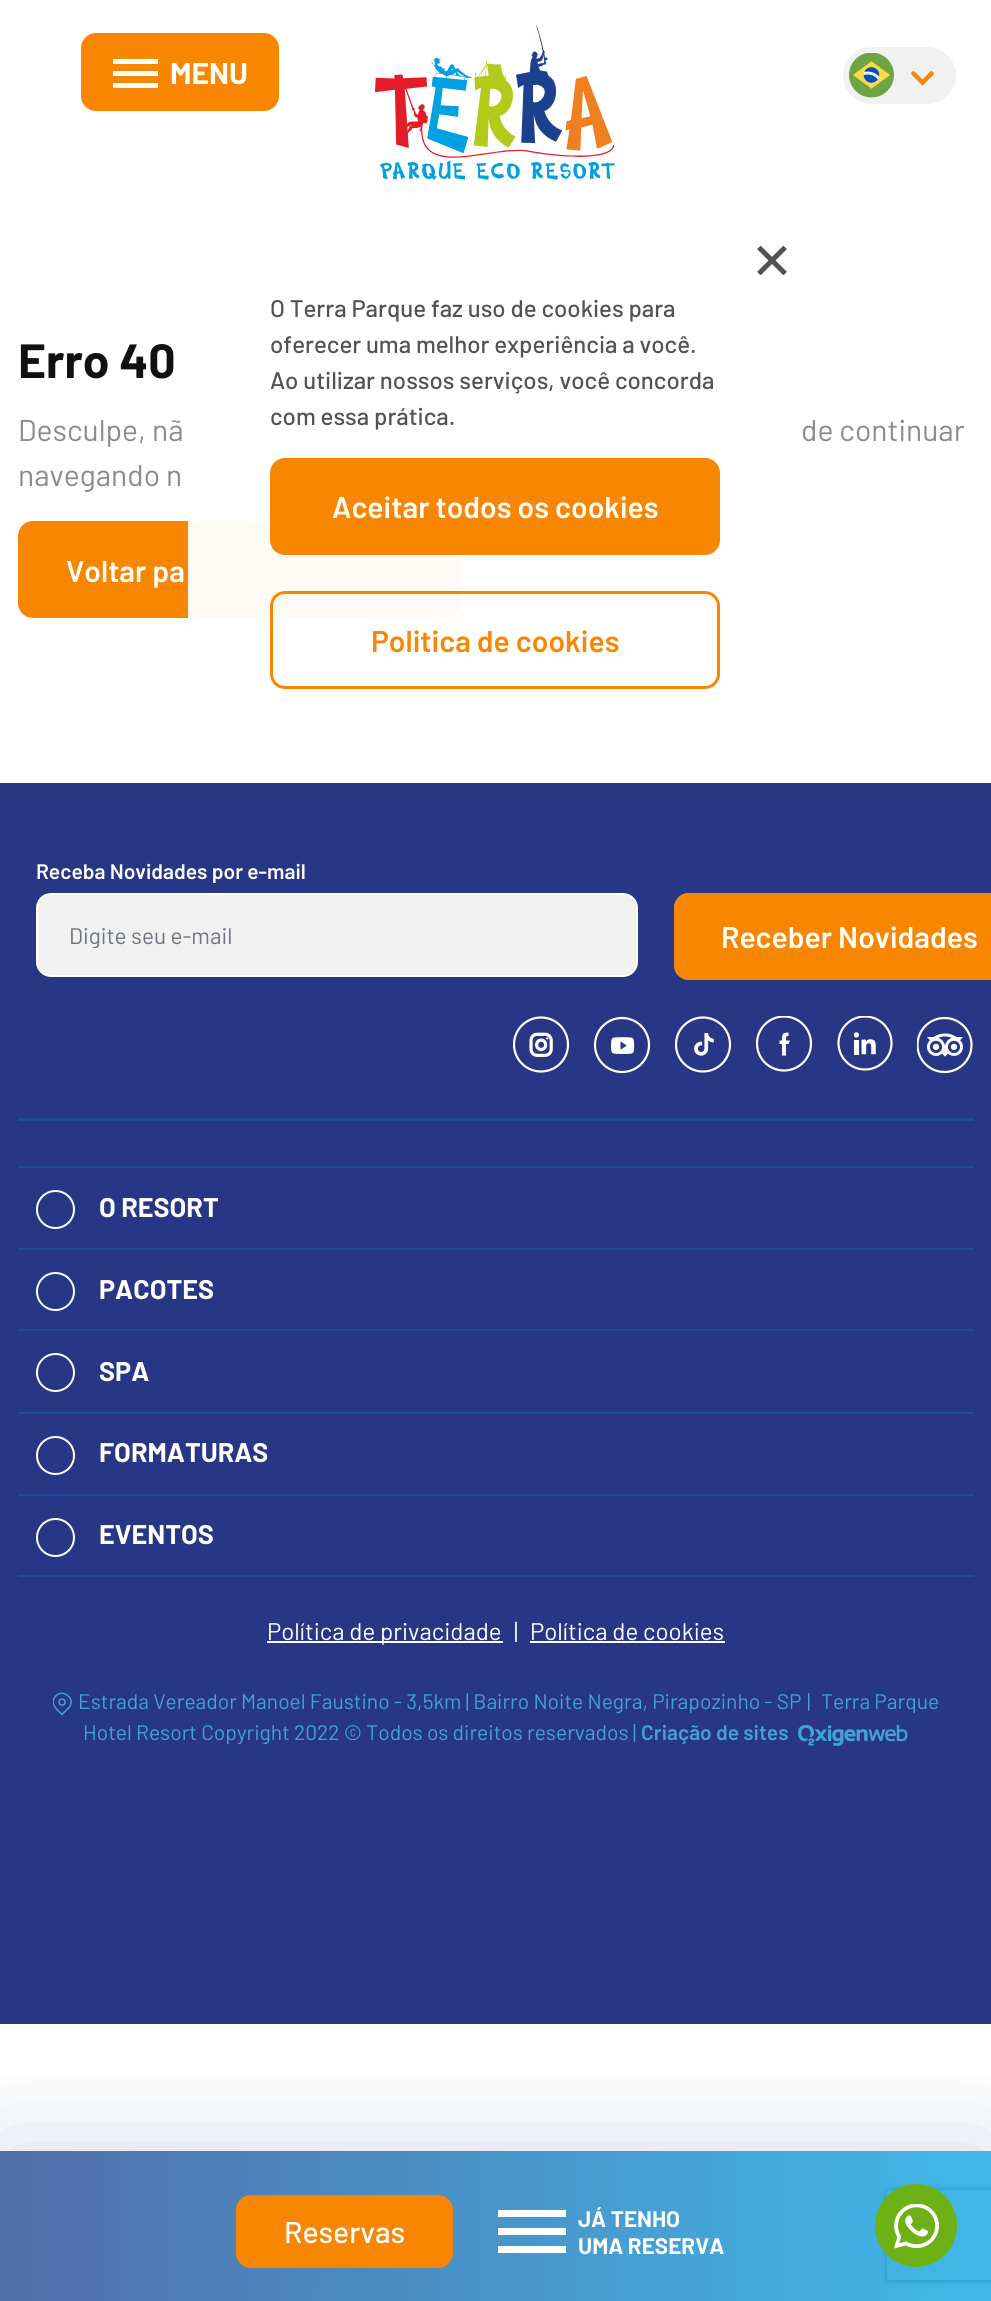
import math
import cairocffi as cairo

surface = cairo.ImageSurface(cairo.FORMAT_RGB24, 991, 2301)
cr = cairo.Context(surface)
options = cairo.FontOptions()
options.set_hint_metrics(cairo.HINT_METRICS_OFF)
options.set_hint_style(cairo.HINT_STYLE_NONE)
cr.set_font_options(options)
cr.set_miter_limit(4)


def use_color(code):
    cr.set_source_rgb(*(v / 255 for v in bytes.fromhex(code[-6:])))


def round_rect(x, y, w, h, r):
    cr.new_sub_path()
    for i, (u, v) in enumerate([(x + w - r, y + h - r), (x + r, y + h - r), (x + r, y + r), (x + w - r, y + r)]):
        cr.arc(u, v, r, i * math.pi / 2, (i + 1) * math.pi / 2)
    cr.close_path()


def shadow(x, y, w, h, r, blur, alpha):
    cr.push_group_with_content(cairo.CONTENT_ALPHA)
    cr.set_operator(cairo.OPERATOR_SOURCE)
    for i in range(15, -16, -2):
        e = blur * i / 6
        if min(w, h) + 2 * e > 0:
            cr.set_source_rgba(0, 0, 0, alpha * math.erfc((i - 1) / 8.5) / 2)
            round_rect(x - e, y - e, w + 2 * e, h + 2 * e, max(0, min(r + e + blur * .6, min(w, h) / 2 + e)))
            cr.fill()
    cr.mask(cr.pop_group())


def picture(path, x, y, w, h):
    cr.save()
    cr.set_source_surface(cairo.ImageSurface.create_from_png(path), x, y)
    cr.rectangle(x, y, w, h)
    cr.fill()
    cr.restore()


use_color("#ffffff")
cr.paint()
use_color("#f98600")
round_rect(81, 33, 198, 78, 15)
cr.fill()
use_color("#ffffff")
cr.rectangle(113, 59, 45, 5)
cr.fill()
cr.rectangle(113, 71, 45, 5)
cr.fill()
cr.rectangle(113, 83, 45, 5)
cr.fill()
cr.select_font_face("Barlow", cairo.FONT_SLANT_NORMAL, cairo.FONT_WEIGHT_BOLD)
cr.set_font_size(30)
cr.move_to(170, 84)
cr.show_text("MENU")
picture("img1.png", 375, 25, 240, 155)
use_color("#f1f1f1")
round_rect(843, 47, 113, 57, 28.5)
cr.fill()
picture("img2.png", 849, 53, 45, 45)
picture("img3.png", 911, 71, 23, 15)
use_color("#f98600")
round_rect(19.5, 522.5, 440, 94, 13.5)
cr.fill_preserve()
cr.set_line_width(3)
cr.stroke()
cr.set_source_rgba(1, 1, 1, 0.96)
round_rect(188, 225, 615, 528, 30)
cr.fill()
picture("img4.png", 757, 245, 30, 30)
cr.select_font_face("Barlow Medium")
cr.set_font_size(24)
use_color("#525252")
cr.move_to(270, 317)
cr.show_text("O Terra Parque faz uso de cookies para")
cr.move_to(270, 353)
cr.show_text("oferecer uma melhor experiência a você.")
cr.move_to(270, 389)
cr.show_text("Ao utilizar nossos serviços, você concorda")
cr.move_to(270, 425)
cr.show_text("com essa prática.")
use_color("#f98600")
round_rect(271.5, 459.5, 447, 94, 13.5)
cr.fill_preserve()
cr.stroke()
cr.select_font_face("Barlow SemiBold")
cr.set_font_size(30)
use_color("#ffffff")
cr.move_to(332, 518)
cr.show_text("Aceitar todos os cookies")
round_rect(271.5, 592.5, 447, 95, 13.5)
use_color("#f98600")
cr.stroke()
cr.move_to(371, 652)
cr.show_text("Politica de cookies")
cr.select_font_face("Barlow", cairo.FONT_SLANT_NORMAL, cairo.FONT_WEIGHT_BOLD)
cr.set_font_size(48)
use_color("#101212")
cr.move_to(18, 378)
cr.show_text("Erro 40")
cr.select_font_face("Barlow")
cr.set_font_size(30)
use_color("#8b8b8b")
cr.move_to(18, 441)
cr.show_text("Desculpe, nã")
cr.move_to(801, 441)
cr.show_text("de continuar")
cr.move_to(18, 486)
cr.show_text("navegando n")
cr.select_font_face("Barlow SemiBold")
use_color("#ffffff")
cr.move_to(66, 582)
cr.show_text("Voltar pa")
use_color("#273786")
cr.rectangle(0, 783, 991, 1241)
cr.fill()
cr.set_font_size(21)
use_color("#ffffff")
cr.move_to(36, 879)
cr.show_text("Receba Novidades por e-mail")
use_color("#f1f1f1")
round_rect(37, 894, 600, 82, 14)
cr.fill_preserve()
use_color("#ffffff")
cr.set_line_width(2)
cr.stroke()
cr.save()
cr.rectangle(69, 921, 536, 27)
cr.clip()
cr.select_font_face("Barlow")
cr.set_font_size(22.5)
use_color("#6c757d")
cr.move_to(69, 944)
cr.show_text("Digite seu e-mail")
cr.restore()
use_color("#f98600")
cr.new_path()
cr.move_to(689, 893)
cr.line_to(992, 893)
cr.line_to(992, 980)
cr.line_to(689, 980)
cr.curve_to(680.5, 980, 674, 973.5, 674, 965)
cr.line_to(674, 908)
cr.curve_to(674, 899.5, 680.5, 893, 689, 893)
cr.close_path()
cr.fill()
round_rect(675.5, 894.5, 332, 84, 13.5)
cr.set_line_width(3)
cr.stroke()
cr.set_font_size(30)
use_color("#ffffff")
cr.move_to(721, 948)
cr.show_text("Receber Novidades")
picture("img5.png", 513, 1016, 57, 57)
picture("img6.png", 594, 1016, 57, 58)
picture("img7.png", 675, 1016, 57, 57)
cr.save()
cr.rectangle(756, 1016, 57, 57)
cr.clip()
cr.arc(784, 1043.5, 27, 0, 2 * math.pi)
cr.set_line_width(2.2)
cr.stroke()
cr.restore()
cr.new_path()
cr.move_to(790, 1040.5)
cr.line_to(786, 1040.5)
cr.curve_to(786, 1037.5, 785.5, 1036, 788.5, 1036)
cr.line_to(788.5, 1032.5)
cr.curve_to(782, 1032.5, 782, 1034.5, 782, 1040.5)
cr.line_to(779.5, 1040.5)
cr.line_to(779.5, 1044)
cr.line_to(782, 1044)
cr.line_to(782, 1055.5)
cr.line_to(786, 1055.5)
cr.line_to(786, 1044)
cr.line_to(788.5, 1044)
cr.close_path()
cr.fill()
picture("img8.png", 837, 1016, 56, 55)
picture("img9.png", 917, 1016, 56, 58)
use_color("#1f4c98")
cr.rectangle(18, 1118, 956, 3)
cr.fill()
cr.rectangle(18, 1166, 956, 2)
cr.fill()
cr.arc(55.5, 1209.5, 18.5, 0, 2 * math.pi)
use_color("#ffffff")
cr.set_line_width(2)
cr.stroke()
cr.select_font_face("Barlow", cairo.FONT_SLANT_NORMAL, cairo.FONT_WEIGHT_BOLD)
cr.set_font_size(27)
cr.move_to(99, 1217)
cr.show_text("O RESORT")
use_color("#1f4c98")
cr.rectangle(18, 1248, 956, 2)
cr.fill()
cr.arc(55.5, 1291.5, 18.5, 0, 2 * math.pi)
use_color("#ffffff")
cr.stroke()
cr.move_to(99, 1299)
cr.show_text("PACOTES")
use_color("#1f4c98")
cr.rectangle(18, 1329, 956, 2)
cr.fill()
cr.arc(55.5, 1372.5, 18.5, 0, 2 * math.pi)
use_color("#ffffff")
cr.stroke()
cr.move_to(99, 1381)
cr.show_text("SPA")
use_color("#1f4c98")
cr.rectangle(18, 1412, 956, 2)
cr.fill()
cr.arc(55.5, 1455.5, 18.5, 0, 2 * math.pi)
use_color("#ffffff")
cr.stroke()
cr.move_to(99, 1462)
cr.show_text("FORMATURAS")
use_color("#1f4c98")
cr.rectangle(18, 1494, 956, 2)
cr.fill()
cr.rectangle(18, 1575, 956, 2)
cr.fill()
cr.arc(55.5, 1537.5, 18.5, 0, 2 * math.pi)
use_color("#ffffff")
cr.stroke()
cr.move_to(99, 1544)
cr.show_text("EVENTOS")
cr.rectangle(267, 1641, 236, 2)
cr.fill()
cr.select_font_face("Barlow")
cr.set_font_size(24)
cr.move_to(267, 1640)
cr.show_text("Política de privacidade")
cr.move_to(514, 1640)
cr.show_text("|")
cr.move_to(530, 1640)
cr.show_text("Política de cookies")
cr.rectangle(530, 1641, 195, 2)
cr.fill()
cr.set_font_size(21)
use_color("#43a0da")
cr.move_to(78, 1709)
cr.show_text("Estrada Vereador Manoel Faustino - 3,5km | Bairro Noite Negra, Pirapozinho - SP")
cr.save()
cr.rectangle(53, 1692, 19, 24)
cr.clip()
cr.new_path()
cr.move_to(68.5, 1708)
cr.line_to(62, 1714.5)
cr.curve_to(57.5, 1710, 50, 1704.5, 54.5, 1697.5)
cr.curve_to(62, 1686.5, 77.5, 1699.5, 68.5, 1708)
cr.close_path()
use_color("#429fdb")
cr.set_line_width(1.5)
cr.stroke()
cr.restore()
cr.arc(62.1, 1702.1, 3, 0, 2 * math.pi)
use_color("#429fdb")
cr.set_line_width(1.5)
cr.stroke()
use_color("#43a0da")
cr.move_to(807, 1709)
cr.show_text("|")
cr.move_to(821, 1709)
cr.show_text("Terra Parque")
cr.move_to(83, 1740)
cr.show_text("Hotel Resort Copyright 2022 © Todos os direitos reservados |")
cr.select_font_face("Barlow SemiBold")
cr.move_to(641, 1740)
cr.show_text("Criação de sites")
picture("img10.png", 798, 1725, 110, 21)
cr.save()
cr.rectangle(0, 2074, 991, 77)
cr.clip()
use_color("#273786")
shadow(0, 2151, 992, 150, 0, 60, 0.2)
cr.restore()
cr.save()
cr.set_fill_rule(cairo.FILL_RULE_EVEN_ODD)
cr.new_path()
cr.move_to(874, 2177)
cr.line_to(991, 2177)
cr.line_to(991, 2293)
cr.line_to(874, 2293)
cr.close_path()
cr.move_to(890, 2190)
cr.line_to(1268, 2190)
cr.curve_to(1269.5, 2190, 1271, 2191.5, 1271, 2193)
cr.line_to(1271, 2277)
cr.curve_to(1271, 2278.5, 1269.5, 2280, 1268, 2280)
cr.line_to(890, 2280)
cr.curve_to(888.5, 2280, 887, 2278.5, 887, 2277)
cr.line_to(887, 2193)
cr.curve_to(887, 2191.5, 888.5, 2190, 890, 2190)
cr.close_path()
cr.clip()
use_color("#808080")
shadow(887, 2190, 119, 90, 3, 4, 1)
cr.restore()
gradient = cairo.LinearGradient(-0.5, 2223, 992, 2229)
gradient.add_color_stop_rgba(0, 0.106, 0.255, 0.557, 0.76)
gradient.add_color_stop_rgba(0.99, 0, 0.631, 0.882, 0.75)
cr.set_source(gradient)
cr.rectangle(0, 2151, 991, 150)
cr.fill()
use_color("#f98600")
round_rect(237.5, 2196.5, 214, 70, 13.5)
cr.fill_preserve()
cr.set_line_width(3)
cr.stroke()
cr.select_font_face("Barlow Medium")
cr.set_font_size(30)
use_color("#ffffff")
cr.move_to(284, 2243)
cr.show_text("Reservas")
cr.rectangle(498, 2210, 68, 7)
cr.fill()
cr.rectangle(498, 2228, 68, 7)
cr.fill()
cr.rectangle(498, 2246, 68, 7)
cr.fill()
cr.select_font_face("Barlow", cairo.FONT_SLANT_NORMAL, cairo.FONT_WEIGHT_BOLD)
cr.set_font_size(22.5)
cr.move_to(578, 2227)
cr.show_text("JÁ TENHO")
cr.move_to(578, 2254)
cr.show_text("UMA RESERVA")
use_color("#6db117")
round_rect(875, 2184, 82, 83, 41)
cr.fill()
picture("img11.png", 894, 2204, 45, 45)
surface.write_to_png("result.png")
